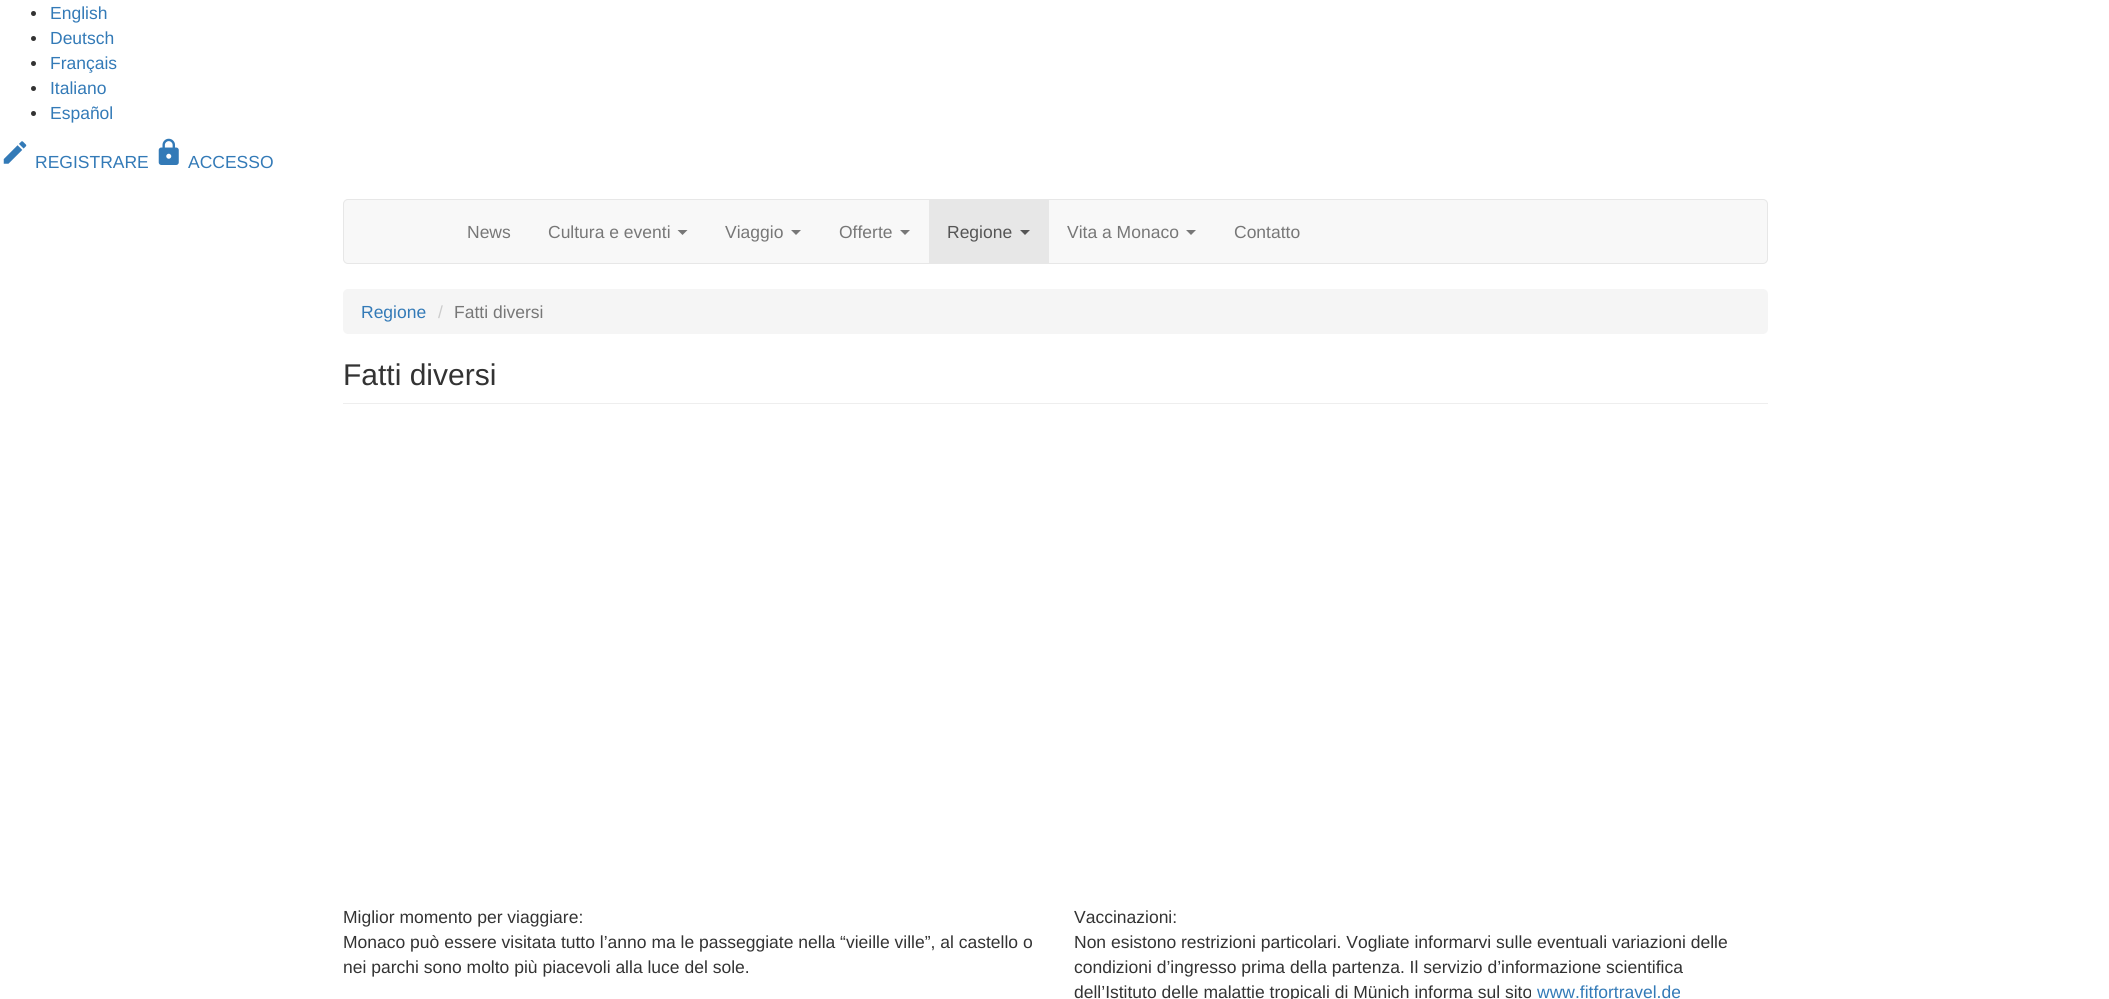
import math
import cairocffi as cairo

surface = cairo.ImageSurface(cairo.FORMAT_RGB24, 2109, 999)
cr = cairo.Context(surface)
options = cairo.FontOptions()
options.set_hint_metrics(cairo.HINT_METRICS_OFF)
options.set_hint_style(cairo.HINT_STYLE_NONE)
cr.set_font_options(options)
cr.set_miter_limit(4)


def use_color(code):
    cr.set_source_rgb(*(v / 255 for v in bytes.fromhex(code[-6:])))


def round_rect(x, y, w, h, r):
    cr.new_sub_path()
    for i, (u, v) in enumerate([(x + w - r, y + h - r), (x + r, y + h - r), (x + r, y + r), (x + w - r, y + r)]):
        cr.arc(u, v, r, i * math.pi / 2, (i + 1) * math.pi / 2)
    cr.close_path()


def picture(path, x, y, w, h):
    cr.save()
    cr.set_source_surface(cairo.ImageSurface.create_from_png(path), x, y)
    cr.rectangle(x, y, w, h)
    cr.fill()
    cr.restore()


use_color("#ffffff")
cr.paint()
use_color("#333333")
cr.arc(33.5, 13.5, 2.5, 0, 2 * math.pi)
cr.fill()
cr.select_font_face("Liberation Sans")
cr.set_font_size(17.5)
use_color("#337ab7")
cr.move_to(50, 19)
cr.show_text("English")
use_color("#333333")
cr.new_path()
cr.arc(33.5, 38.5, 2.5, 0, 2 * math.pi)
cr.fill()
use_color("#337ab7")
cr.move_to(50, 44)
cr.show_text("Deutsch")
use_color("#333333")
cr.new_path()
cr.arc(33.5, 63.5, 2.5, 0, 2 * math.pi)
cr.fill()
use_color("#337ab7")
cr.move_to(50, 69)
cr.show_text("Français")
use_color("#333333")
cr.new_path()
cr.arc(33.5, 88.5, 2.5, 0, 2 * math.pi)
cr.fill()
use_color("#337ab7")
cr.move_to(50, 94)
cr.show_text("Italiano")
use_color("#333333")
cr.new_path()
cr.arc(33.5, 113.5, 2.5, 0, 2 * math.pi)
cr.fill()
use_color("#337ab7")
cr.move_to(50, 119)
cr.show_text("Español")
picture("img1.png", 3, 141, 24, 23)
cr.move_to(35, 168)
cr.show_text("REGISTRARE")
picture("img2.png", 158, 138, 21, 27)
cr.move_to(188, 168)
cr.show_text("ACCESSO")
use_color("#f8f8f8")
round_rect(343.5, 199.5, 1424, 64, 4.5)
cr.fill_preserve()
use_color("#e7e7e7")
cr.set_line_width(1)
cr.stroke()
use_color("#777777")
cr.move_to(467, 238)
cr.show_text("News")
cr.move_to(548, 238)
cr.show_text("Cultura e eventi")
cr.new_path()
cr.move_to(677.5, 230)
cr.line_to(687.5, 230)
cr.line_to(682.5, 235)
cr.close_path()
cr.fill()
cr.move_to(725, 238)
cr.show_text("Viaggio")
cr.new_path()
cr.move_to(791, 230)
cr.line_to(801, 230)
cr.line_to(796, 235)
cr.close_path()
cr.fill()
cr.move_to(839, 238)
cr.show_text("Offerte")
cr.new_path()
cr.move_to(900, 230)
cr.line_to(910, 230)
cr.line_to(905, 235)
cr.close_path()
cr.fill()
use_color("#e7e7e7")
cr.rectangle(929, 200, 120, 63)
cr.fill()
use_color("#555555")
cr.move_to(947, 238)
cr.show_text("Regione")
cr.new_path()
cr.move_to(1020, 230)
cr.line_to(1030, 230)
cr.line_to(1025, 235)
cr.close_path()
cr.fill()
use_color("#777777")
cr.move_to(1067, 238)
cr.show_text("Vita a Monaco")
cr.new_path()
cr.move_to(1186, 230)
cr.line_to(1196, 230)
cr.line_to(1191, 235)
cr.close_path()
cr.fill()
cr.move_to(1234, 238)
cr.show_text("Contatto")
use_color("#f5f5f5")
round_rect(343, 289, 1425, 45, 5)
cr.fill()
use_color("#337ab7")
cr.move_to(361, 318)
cr.show_text("Regione")
use_color("#cccccc")
cr.move_to(438, 318)
cr.show_text("/")
use_color("#777777")
cr.move_to(454, 318)
cr.show_text("Fatti diversi")
use_color("#eeeeee")
cr.rectangle(343, 403, 1425, 1)
cr.fill()
cr.set_font_size(30)
use_color("#333333")
cr.move_to(343, 385)
cr.show_text("Fatti diversi")
cr.set_font_size(17.5)
cr.move_to(343, 923)
cr.show_text("Miglior momento per viaggiare:")
cr.move_to(343, 948)
cr.show_text("Monaco può essere visitata tutto l’anno ma le passeggiate nella “vieille ville”, al castello o")
cr.move_to(343, 973)
cr.show_text("nei parchi sono molto più piacevoli alla luce del sole.")
cr.move_to(1074, 923)
cr.show_text("Vaccinazioni:")
cr.move_to(1074, 948)
cr.show_text("Non esistono restrizioni particolari. Vogliate informarvi sulle eventuali variazioni delle")
cr.move_to(1074, 973)
cr.show_text("condizioni d’ingresso prima della partenza. Il servizio d’informazione scientifica")
cr.move_to(1074, 998)
cr.show_text("dell’Istituto delle malattie tropicali di Münich informa sul sito")
use_color("#337ab7")
cr.move_to(1537, 998)
cr.show_text("www.fitfortravel.de")
surface.write_to_png("result.png")
